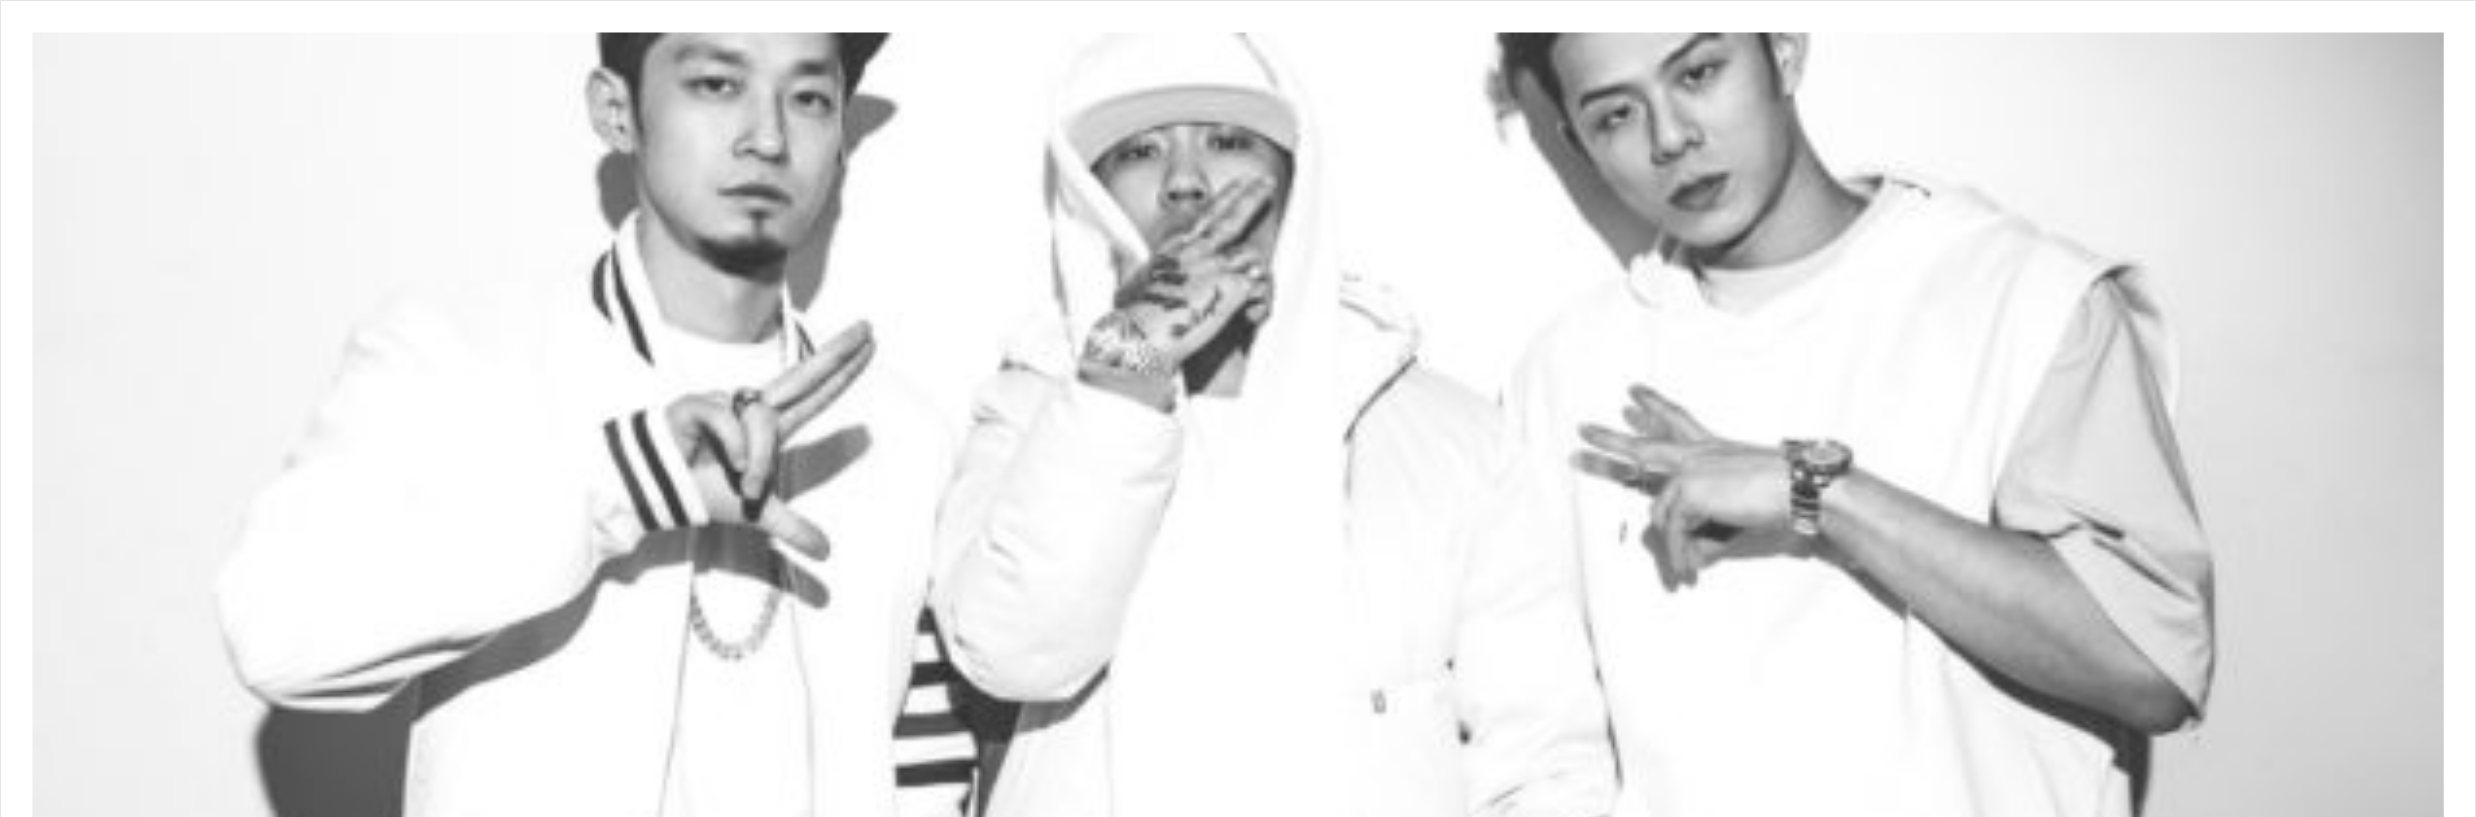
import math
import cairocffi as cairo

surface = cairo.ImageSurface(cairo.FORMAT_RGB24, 2476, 817)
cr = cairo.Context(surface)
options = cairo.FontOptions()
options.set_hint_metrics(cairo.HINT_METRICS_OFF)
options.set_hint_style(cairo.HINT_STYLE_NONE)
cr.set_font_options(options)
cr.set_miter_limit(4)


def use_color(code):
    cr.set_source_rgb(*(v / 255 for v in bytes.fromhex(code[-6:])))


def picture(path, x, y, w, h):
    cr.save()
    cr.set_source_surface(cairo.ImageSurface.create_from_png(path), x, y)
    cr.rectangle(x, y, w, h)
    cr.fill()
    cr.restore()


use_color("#ffffff")
cr.paint()
cr.rectangle(0.5, 0.5, 2475, 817)
use_color("#e5e5e5")
cr.set_line_width(1)
cr.stroke()
picture("img1.png", 32, 32, 2412, 785)
surface.write_to_png("result.png")
